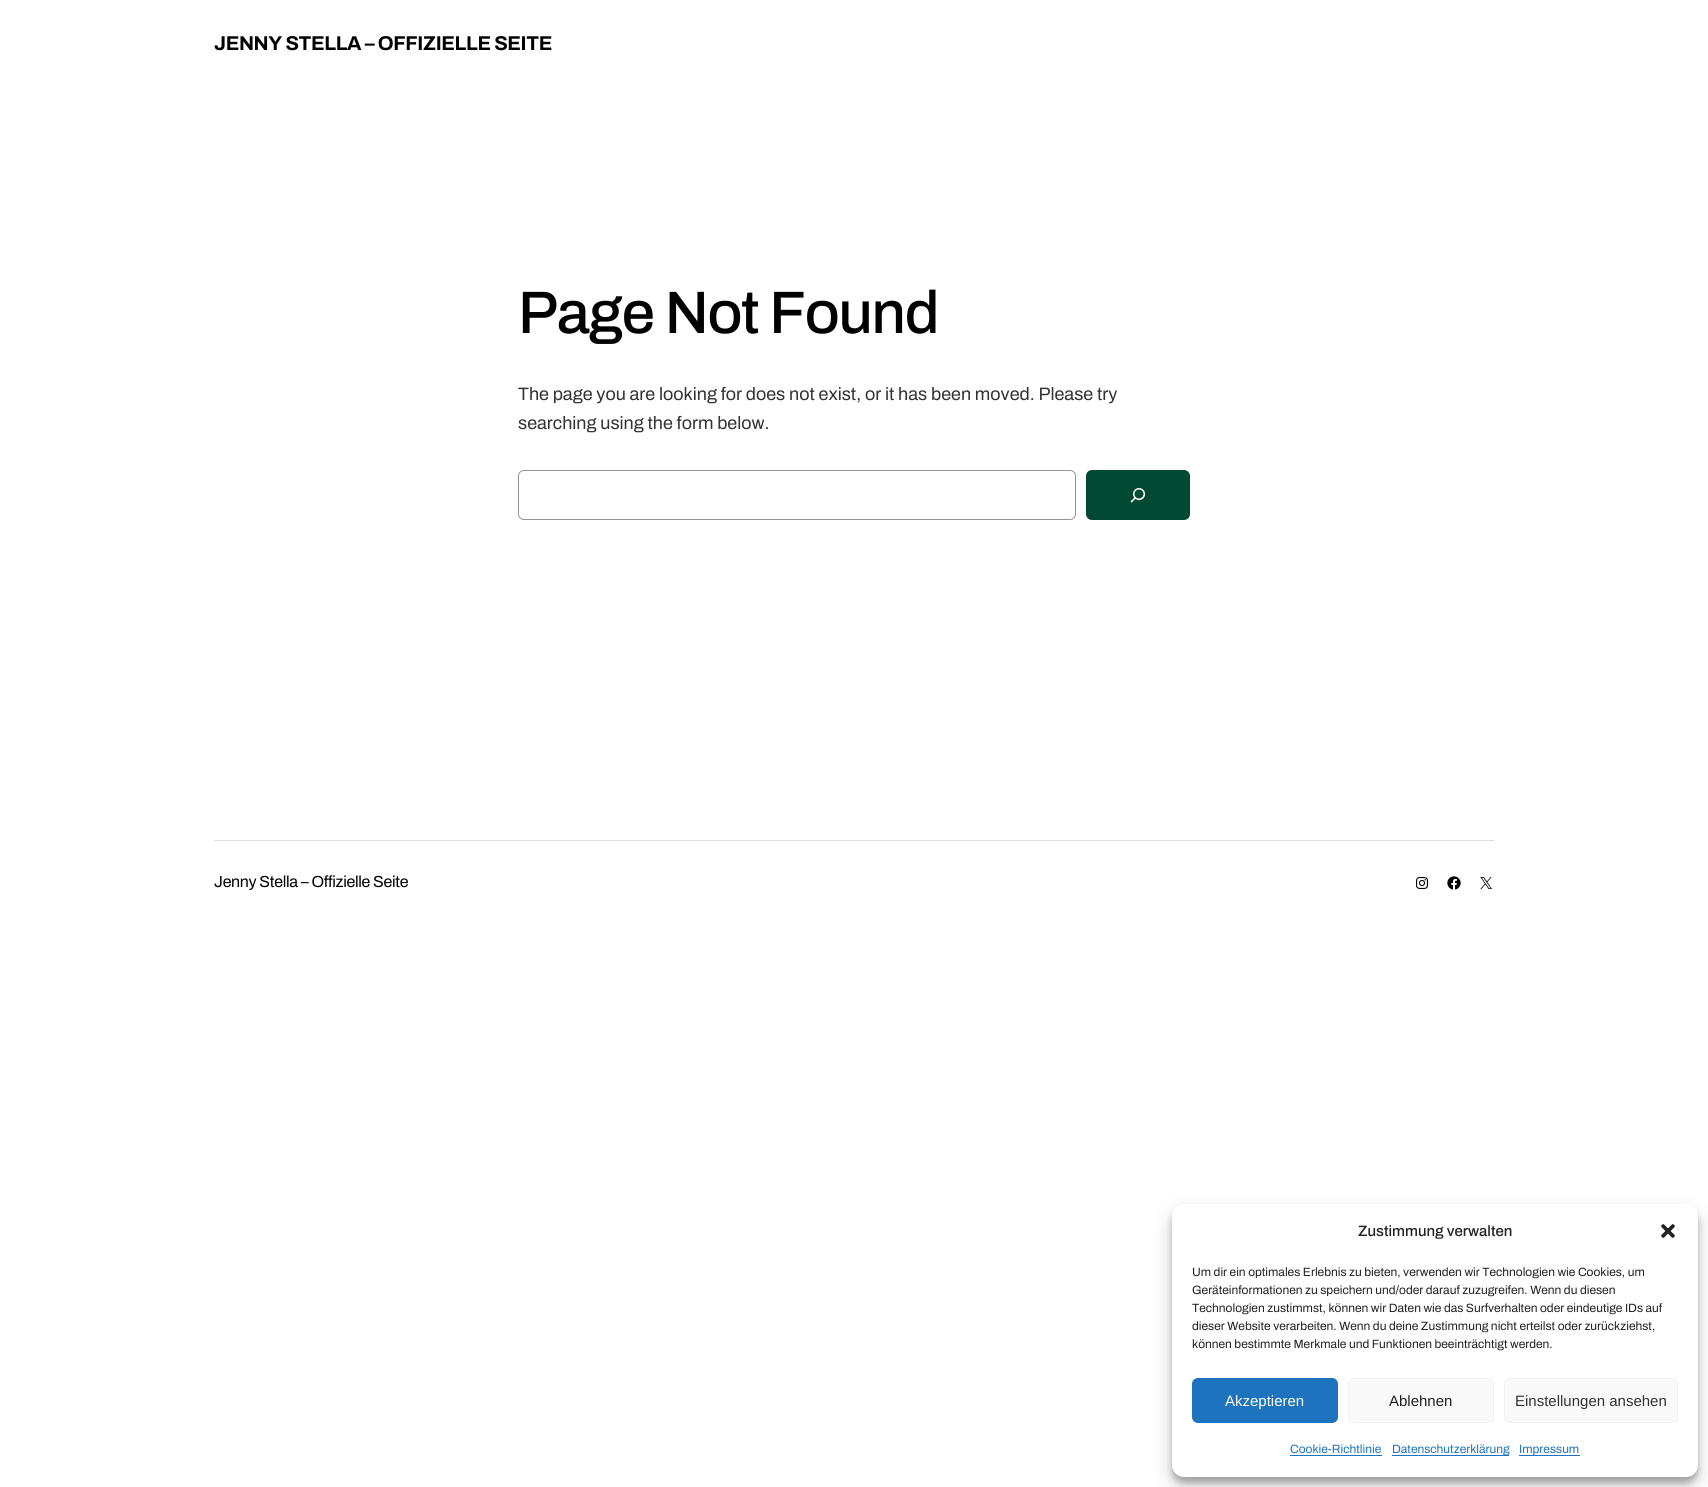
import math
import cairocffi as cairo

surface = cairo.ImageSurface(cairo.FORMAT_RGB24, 1708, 1487)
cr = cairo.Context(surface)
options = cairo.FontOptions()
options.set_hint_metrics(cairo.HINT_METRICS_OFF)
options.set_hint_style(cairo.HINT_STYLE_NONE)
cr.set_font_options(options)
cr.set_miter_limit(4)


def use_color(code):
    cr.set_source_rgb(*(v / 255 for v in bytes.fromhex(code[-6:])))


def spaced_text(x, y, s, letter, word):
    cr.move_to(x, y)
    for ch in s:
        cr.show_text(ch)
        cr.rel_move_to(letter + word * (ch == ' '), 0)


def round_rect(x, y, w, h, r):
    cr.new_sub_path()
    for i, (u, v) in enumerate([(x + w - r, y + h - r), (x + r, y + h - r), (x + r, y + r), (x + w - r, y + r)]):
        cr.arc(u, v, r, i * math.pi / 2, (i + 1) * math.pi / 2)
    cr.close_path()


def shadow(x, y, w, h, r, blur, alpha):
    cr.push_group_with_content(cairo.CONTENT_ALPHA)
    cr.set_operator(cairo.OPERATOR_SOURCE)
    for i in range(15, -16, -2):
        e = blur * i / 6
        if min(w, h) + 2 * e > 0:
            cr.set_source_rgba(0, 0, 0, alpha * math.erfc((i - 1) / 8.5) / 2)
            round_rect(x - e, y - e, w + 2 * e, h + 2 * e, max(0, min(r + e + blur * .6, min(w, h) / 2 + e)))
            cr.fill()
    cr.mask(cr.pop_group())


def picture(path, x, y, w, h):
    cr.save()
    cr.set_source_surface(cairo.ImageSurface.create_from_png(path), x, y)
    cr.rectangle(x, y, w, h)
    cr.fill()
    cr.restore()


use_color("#ffffff")
cr.paint()
cr.select_font_face("Archivo", cairo.FONT_SLANT_NORMAL, cairo.FONT_WEIGHT_BOLD)
cr.set_font_size(20)
use_color("#000000")
spaced_text(214, 50, "JENNY STELLA – OFFIZIELLE SEITE", -0.4, 0)
cr.select_font_face("Archivo Medium")
cr.set_font_size(60)
spaced_text(518, 333, "Page Not Found", -1.25, 0)
cr.select_font_face("Archivo")
cr.set_font_size(18)
use_color("#333333")
cr.move_to(518, 400)
cr.show_text("The page you are looking for does not exist, or it has been moved. Please try")
cr.move_to(518, 429)
cr.show_text("searching using the form below.")
round_rect(518.5, 470.5, 557, 49, 5.5)
use_color("#949494")
cr.set_line_width(1)
cr.stroke()
use_color("#014932")
round_rect(1086, 470, 104, 50, 6)
cr.fill()
picture("img1.png", 1130, 488, 16, 15)
use_color("#dedede")
cr.rectangle(214, 840, 1280, 1)
cr.fill()
cr.set_font_size(16)
use_color("#000000")
spaced_text(214, 887, "Jenny Stella – Offizielle Seite", -0.3, 0)
picture("img2.png", 1416, 877, 12, 12)
picture("img3.png", 1447, 876, 14, 14)
picture("img4.png", 1480, 877, 12, 12)
use_color("#000000")
shadow(1172, 1210, 526, 273, 12, 3, 0.23)
shadow(1172, 1214, 526, 273, 12, 10, 0.19)
use_color("#ffffff")
round_rect(1172, 1204, 526, 273, 12)
cr.fill()
cr.select_font_face("Archivo Medium")
cr.set_font_size(15)
use_color("#222222")
cr.move_to(1358, 1236)
cr.show_text("Zustimmung verwalten")
picture("img5.png", 1661, 1224, 14, 14)
cr.select_font_face("Archivo")
cr.set_font_size(12)
cr.move_to(1192, 1276)
cr.show_text("Um dir ein optimales Erlebnis zu bieten, verwenden wir Technologien wie Cookies, um")
cr.move_to(1192, 1294)
cr.show_text("Geräteinformationen zu speichern und/oder darauf zuzugreifen. Wenn du diesen")
cr.move_to(1192, 1312)
cr.show_text("Technologien zustimmst, können wir Daten wie das Surfverhalten oder eindeutige IDs auf")
cr.move_to(1192, 1330)
cr.show_text("dieser Website verarbeiten. Wenn du deine Zustimmung nicht erteilst oder zurückziehst,")
cr.move_to(1192, 1348)
cr.show_text("können bestimmte Merkmale und Funktionen beeinträchtigt werden.")
use_color("#1e73be")
round_rect(1192.5, 1378.5, 145, 44, 5.5)
cr.fill_preserve()
cr.stroke()
cr.select_font_face("Liberation Sans")
cr.set_font_size(15)
use_color("#ffffff")
cr.move_to(1225, 1406)
cr.show_text("Akzeptieren")
use_color("#f9f9f9")
round_rect(1348.5, 1378.5, 145, 44, 5.5)
cr.fill_preserve()
use_color("#f2f2f2")
cr.stroke()
use_color("#222222")
cr.move_to(1389, 1406)
cr.show_text("Ablehnen")
use_color("#f9f9f9")
round_rect(1504.5, 1378.5, 173, 44, 5.5)
cr.fill_preserve()
use_color("#f2f2f2")
cr.stroke()
use_color("#333333")
cr.move_to(1515, 1406)
cr.show_text("Einstellungen ansehen")
cr.select_font_face("Archivo")
cr.set_font_size(12)
use_color("#1e73be")
cr.move_to(1290, 1453)
cr.show_text("Cookie-Richtlinie")
cr.rectangle(1290, 1455, 92, 1)
cr.fill()
cr.rectangle(1392, 1455, 117, 1)
cr.fill()
cr.move_to(1392, 1453)
cr.show_text("Datenschutzerklärung")
cr.rectangle(1519, 1455, 61, 1)
cr.fill()
cr.move_to(1519, 1453)
cr.show_text("Impressum")
surface.write_to_png("result.png")
